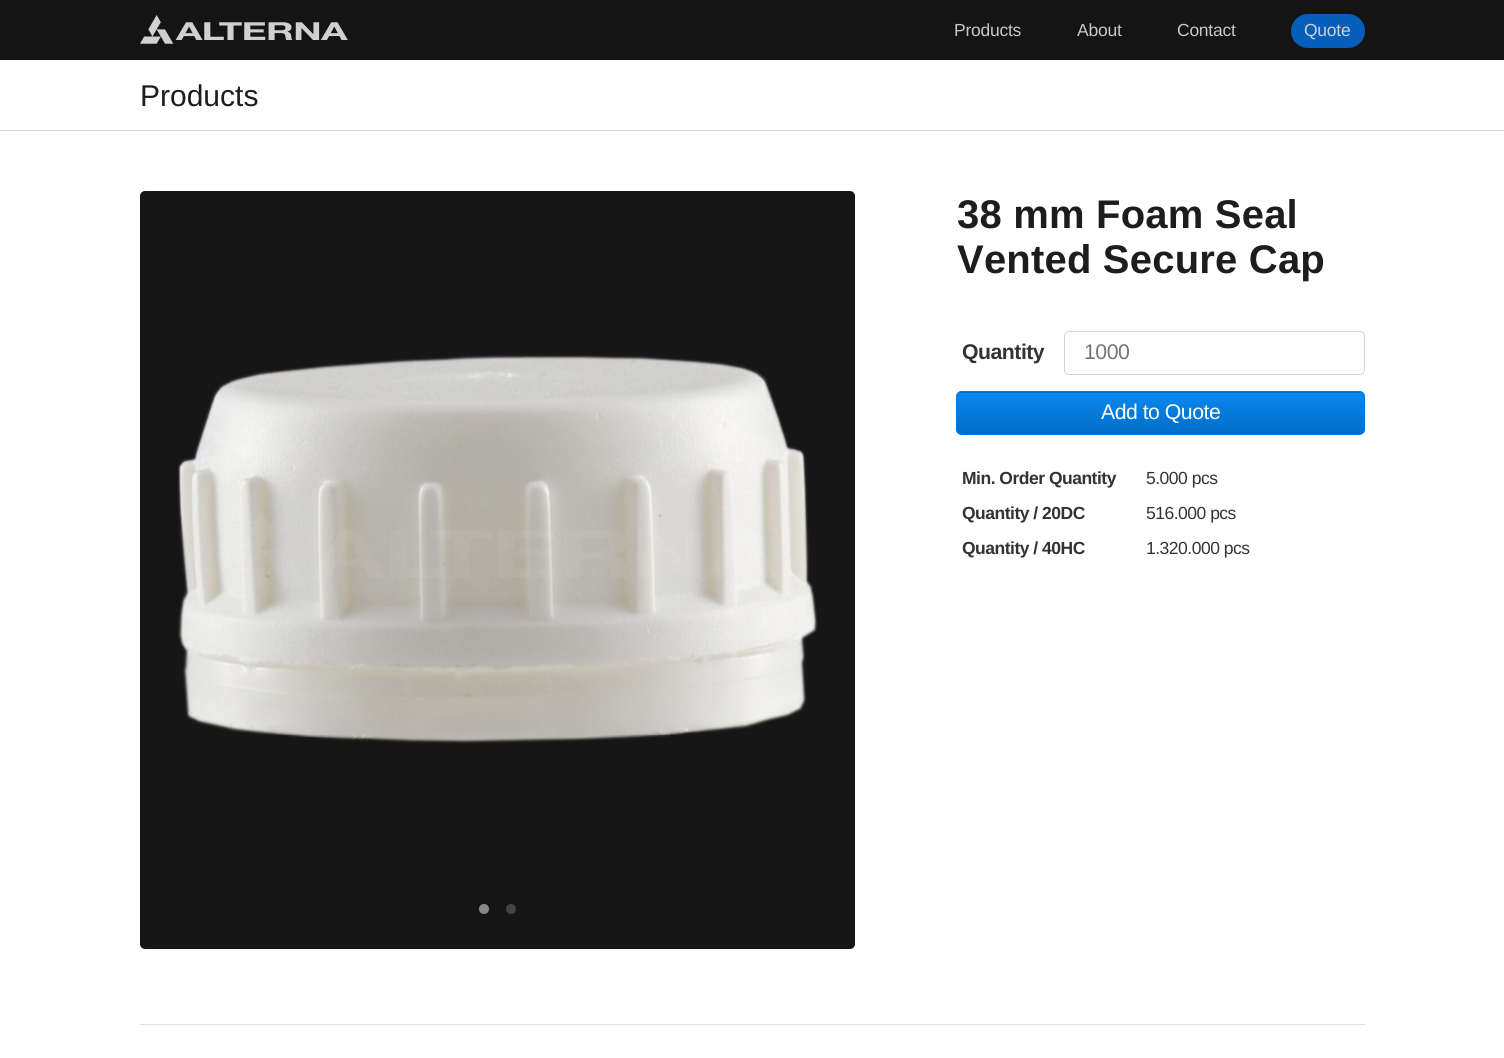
import math
import cairocffi as cairo

surface = cairo.ImageSurface(cairo.FORMAT_RGB24, 1504, 1058)
cr = cairo.Context(surface)
options = cairo.FontOptions()
options.set_hint_metrics(cairo.HINT_METRICS_OFF)
options.set_hint_style(cairo.HINT_STYLE_NONE)
cr.set_font_options(options)
cr.set_miter_limit(4)


def use_color(code):
    cr.set_source_rgb(*(v / 255 for v in bytes.fromhex(code[-6:])))


def spaced_text(x, y, s, letter, word):
    cr.move_to(x, y)
    for ch in s:
        cr.show_text(ch)
        cr.rel_move_to(letter + word * (ch == ' '), 0)


def round_rect(x, y, w, h, r):
    cr.new_sub_path()
    for i, (u, v) in enumerate([(x + w - r, y + h - r), (x + r, y + h - r), (x + r, y + r), (x + w - r, y + r)]):
        cr.arc(u, v, r, i * math.pi / 2, (i + 1) * math.pi / 2)
    cr.close_path()


def picture(path, x, y, w, h):
    cr.save()
    cr.set_source_surface(cairo.ImageSurface.create_from_png(path), x, y)
    cr.rectangle(x, y, w, h)
    cr.fill()
    cr.restore()


use_color("#ffffff")
cr.paint()
use_color("#141414")
cr.rectangle(0, 0, 1504, 60)
cr.fill()
picture("img1.png", 140, 15, 208, 29)
cr.select_font_face("Liberation Sans")
cr.set_font_size(17.5)
use_color("#c8c8ca")
spaced_text(954, 36, "Products", -0.25, 0)
spaced_text(1077, 36, "About", -0.25, 0)
spaced_text(1177, 36, "Contact", -0.25, 0)
use_color("#045eba")
round_rect(1291, 14, 74, 34, 17)
cr.fill()
use_color("#d0d0d0")
spaced_text(1304, 36, "Quote", -0.25, 0)
use_color("#d7d7d8")
cr.rectangle(0, 130, 1504, 1)
cr.fill()
cr.set_font_size(30)
use_color("#1d1d1f")
cr.move_to(140, 106)
cr.show_text("Products")
use_color("#161617")
round_rect(140, 191, 715, 758, 5)
cr.fill()
picture("img2.png", 176, 355, 642, 389)
use_color("#888888")
cr.arc(484, 909, 5, 0, 2 * math.pi)
cr.fill()
use_color("#444444")
cr.arc(511, 909, 5, 0, 2 * math.pi)
cr.fill()
cr.select_font_face("Liberation Sans", cairo.FONT_SLANT_NORMAL, cairo.FONT_WEIGHT_BOLD)
cr.set_font_size(40)
use_color("#1d1d1f")
spaced_text(957, 228, "38 mm Foam Seal", 0.2, 0)
spaced_text(957, 273, "Vented Secure Cap", 0.2, 0)
cr.set_font_size(21.25)
use_color("#333333")
spaced_text(962, 359, "Quantity", -0.5, 0)
round_rect(1064.5, 331.5, 300, 43, 4.5)
use_color("#d6d6d6")
cr.set_line_width(1)
cr.stroke()
cr.select_font_face("Liberation Sans")
use_color("#757575")
spaced_text(1084, 359, "1000", -0.5, 0)
cr.save()
round_rect(956, 391, 409, 44, 6)
cr.clip()
gradient = cairo.LinearGradient(1161, 351, 1161, 393)
gradient.add_color_stop_rgba(0, 0.039, 0.533, 0.941, 1)
gradient.add_color_stop_rgba(1, 0, 0.427, 0.78, 1)
cr.set_source(gradient)
cr.rectangle(956, 391, 409, 2)
cr.fill()
gradient = cairo.LinearGradient(1161, 393, 1161, 434)
gradient.add_color_stop_rgba(0, 0.039, 0.533, 0.941, 1)
gradient.add_color_stop_rgba(1, 0, 0.427, 0.78, 1)
cr.set_source(gradient)
cr.rectangle(956, 393, 409, 41)
cr.fill()
cr.restore()
round_rect(956.5, 391.5, 408, 43, 5.5)
use_color("#0077dd")
cr.stroke()
use_color("#ffffff")
spaced_text(1101, 419, "Add to Quote", -0.5, 0)
cr.select_font_face("Liberation Sans", cairo.FONT_SLANT_NORMAL, cairo.FONT_WEIGHT_BOLD)
cr.set_font_size(17.5)
use_color("#333333")
spaced_text(962, 484, "Min. Order Quantity", -0.5, 0)
cr.select_font_face("Liberation Sans")
spaced_text(1146, 484, "5.000 pcs", -0.5, 0)
cr.select_font_face("Liberation Sans", cairo.FONT_SLANT_NORMAL, cairo.FONT_WEIGHT_BOLD)
spaced_text(962, 519, "Quantity / 20DC", -0.5, 0)
cr.select_font_face("Liberation Sans")
spaced_text(1146, 519, "516.000 pcs", -0.5, 0)
cr.select_font_face("Liberation Sans", cairo.FONT_SLANT_NORMAL, cairo.FONT_WEIGHT_BOLD)
spaced_text(962, 554, "Quantity / 40HC", -0.5, 0)
cr.select_font_face("Liberation Sans")
spaced_text(1146, 554, "1.320.000 pcs", -0.5, 0)
use_color("#e0e0e0")
cr.rectangle(140, 1024, 1225, 1)
cr.fill()
surface.write_to_png("result.png")
